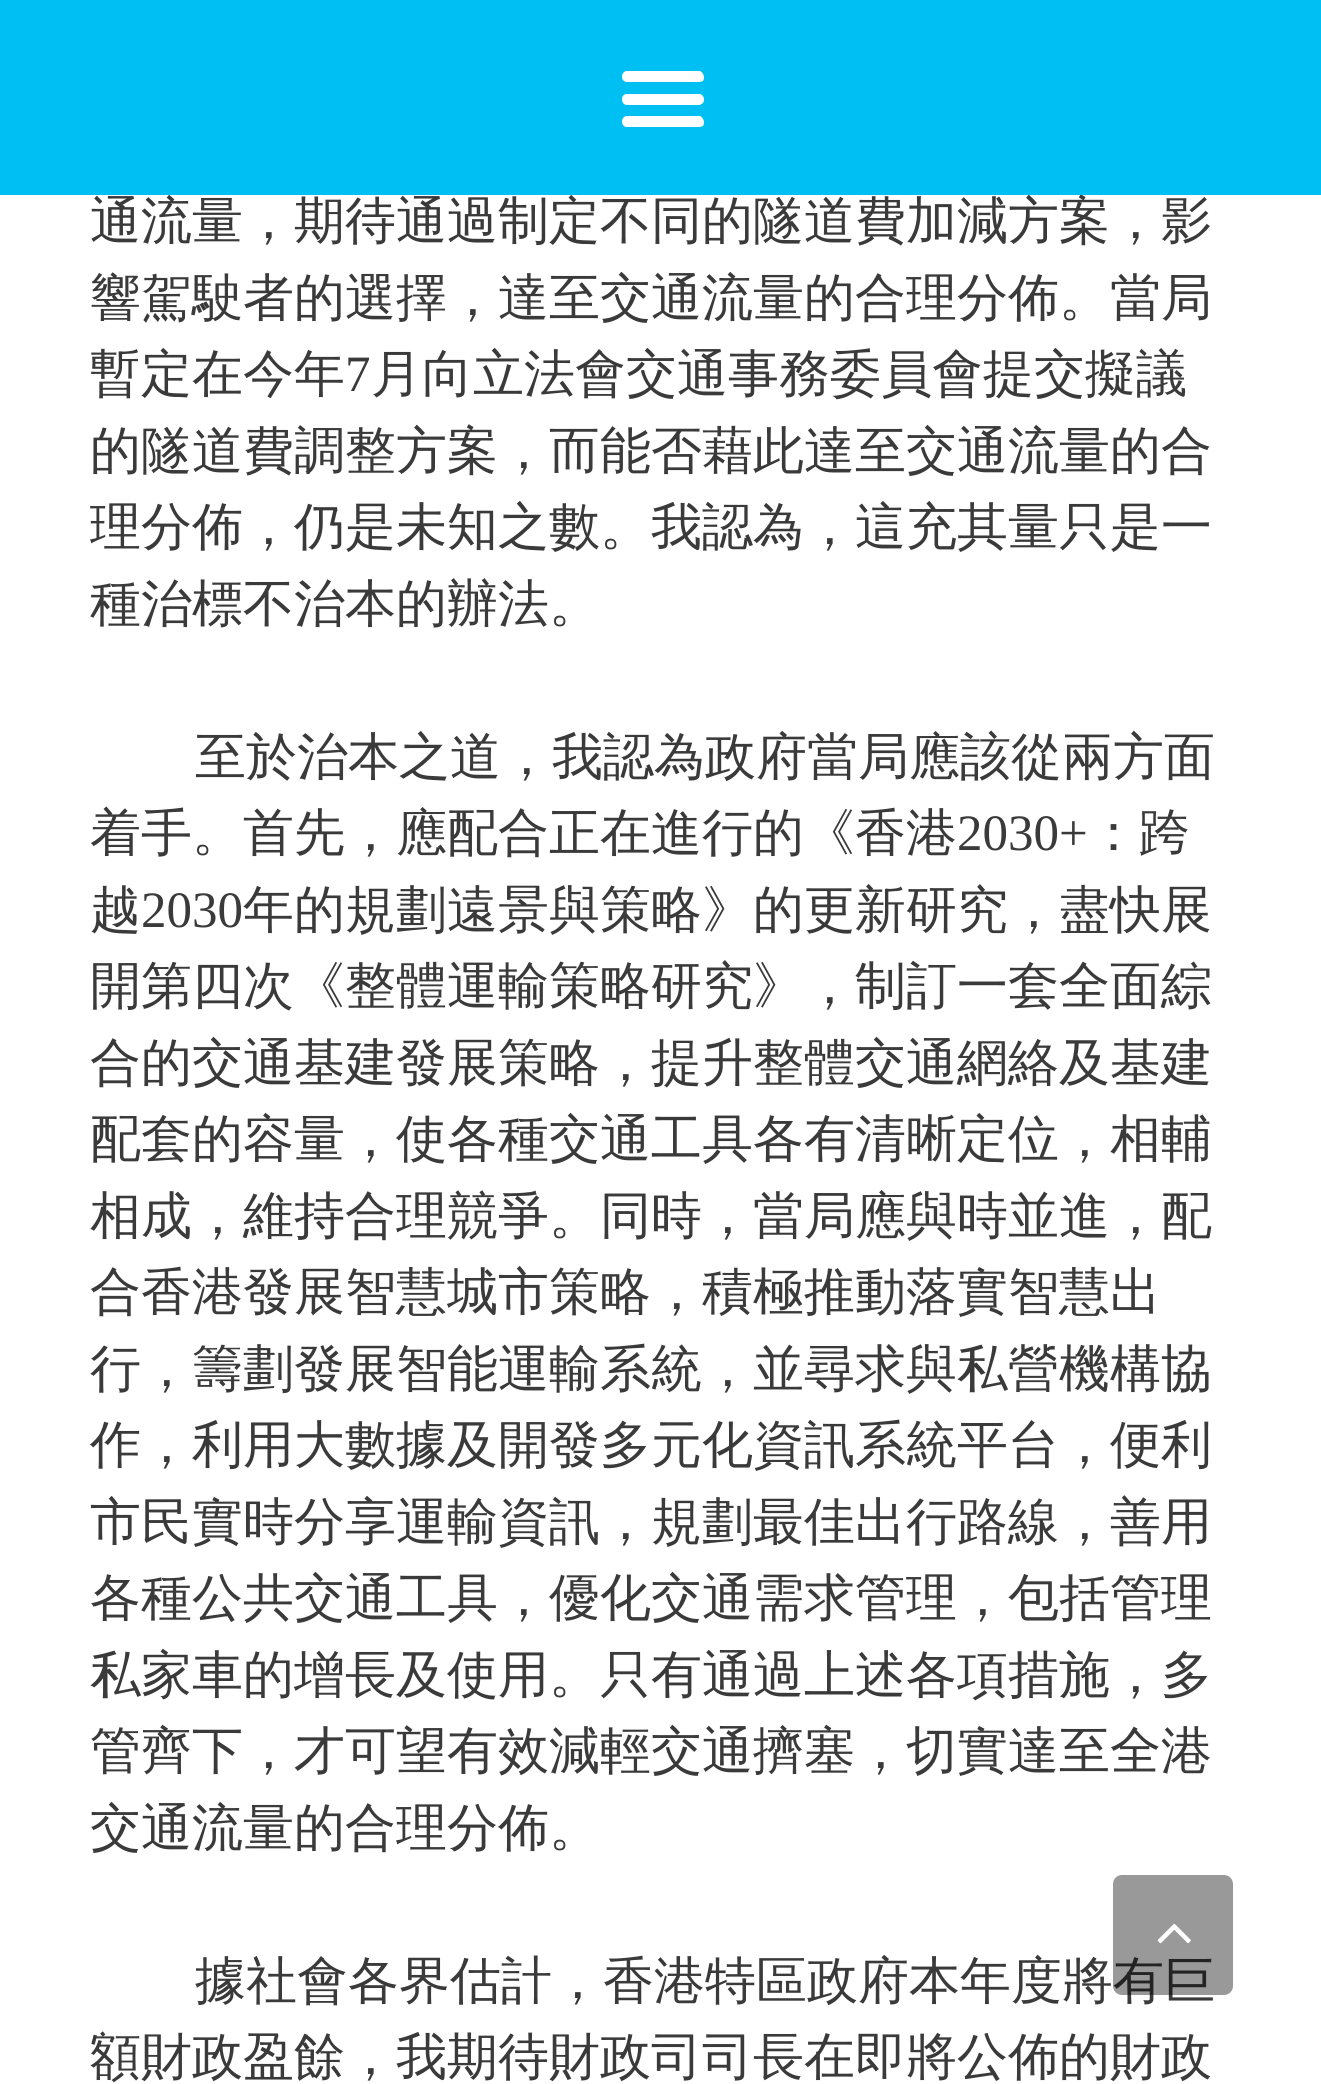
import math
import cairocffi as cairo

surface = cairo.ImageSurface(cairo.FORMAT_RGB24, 1321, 2084)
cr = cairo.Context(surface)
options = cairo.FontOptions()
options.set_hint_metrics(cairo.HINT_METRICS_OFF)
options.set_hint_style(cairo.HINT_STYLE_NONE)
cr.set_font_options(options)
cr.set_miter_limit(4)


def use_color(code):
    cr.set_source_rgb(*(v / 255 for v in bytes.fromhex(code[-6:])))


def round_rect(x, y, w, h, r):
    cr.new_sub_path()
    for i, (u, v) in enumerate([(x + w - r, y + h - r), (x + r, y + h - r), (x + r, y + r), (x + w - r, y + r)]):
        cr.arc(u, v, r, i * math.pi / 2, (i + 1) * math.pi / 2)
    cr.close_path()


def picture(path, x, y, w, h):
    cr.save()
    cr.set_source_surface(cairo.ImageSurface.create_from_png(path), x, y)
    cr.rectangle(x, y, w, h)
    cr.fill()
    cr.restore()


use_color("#ffffff")
cr.paint()
cr.select_font_face("WenQuanYi Zen Hei Medium")
cr.set_font_size(51)
use_color("#3a3a3a")
cr.move_to(90, 238)
cr.show_text("通流量，期待通過制定不同的隧道費加減方案，影")
use_color("#00bff2")
cr.rectangle(0, 0, 1321, 195)
cr.fill()
use_color("#ffffff")
cr.new_path()
cr.move_to(627, 82)
cr.line_to(700, 82)
cr.line_to(703, 81)
cr.curve_to(705, 78, 704, 73, 700, 71)
cr.line_to(626, 71)
cr.curve_to(620, 73, 621, 82, 627, 82)
cr.close_path()
cr.move_to(627, 105)
cr.line_to(700, 105)
cr.line_to(703, 103)
cr.curve_to(705, 100, 704, 95, 700, 94)
cr.line_to(626, 94)
cr.curve_to(620, 95, 621, 105, 627, 105)
cr.close_path()
cr.move_to(627, 127)
cr.line_to(700, 127)
cr.line_to(703, 126)
cr.curve_to(705, 123, 704, 118, 700, 116)
cr.line_to(626, 116)
cr.curve_to(620, 118, 621, 127, 627, 127)
cr.close_path()
cr.fill()
use_color("#3a3a3a")
cr.move_to(90, 315)
cr.show_text("響駕駛者的選擇，達至交通流量的合理分佈。當局")
cr.move_to(90, 391)
cr.show_text("暫定在今年")
cr.select_font_face("Liberation Serif")
cr.move_to(345, 391)
cr.show_text("7")
cr.select_font_face("WenQuanYi Zen Hei Medium")
cr.move_to(371, 391)
cr.show_text("月向立法會交通事務委員會提交擬議")
cr.move_to(90, 468)
cr.show_text("的隧道費調整方案，而能否藉此達至交通流量的合")
cr.move_to(90, 544)
cr.show_text("理分佈，仍是未知之數。我認為，這充其量只是一")
cr.move_to(90, 621)
cr.show_text("種治標不治本的辦法。")
cr.move_to(195, 774)
cr.show_text("至於治本之道，我認為政府當局應該從兩方面")
cr.move_to(90, 850)
cr.show_text("着手。首先，應配合正在進行的《香港")
cr.select_font_face("Liberation Serif")
cr.move_to(957, 850)
cr.show_text("2030+")
cr.select_font_face("WenQuanYi Zen Hei Medium")
cr.move_to(1088, 850)
cr.show_text("：跨")
cr.move_to(90, 927)
cr.show_text("越")
cr.select_font_face("Liberation Serif")
cr.move_to(141, 927)
cr.show_text("2030")
cr.select_font_face("WenQuanYi Zen Hei Medium")
cr.move_to(243, 927)
cr.show_text("年的規劃遠景與策略》的更新研究，盡快展")
cr.move_to(90, 1003)
cr.show_text("開第四次《整體運輸策略研究》，制訂一套全面綜")
cr.move_to(90, 1080)
cr.show_text("合的交通基建發展策略，提升整體交通網絡及基建")
cr.move_to(90, 1156)
cr.show_text("配套的容量，使各種交通工具各有清晰定位，相輔")
cr.move_to(90, 1233)
cr.show_text("相成，維持合理競爭。同時，當局應與時並進，配")
cr.move_to(90, 1309)
cr.show_text("合香港發展智慧城市策略，積極推動落實智慧出")
cr.move_to(90, 1386)
cr.show_text("行，籌劃發展智能運輸系統，並尋求與私營機構協")
cr.move_to(90, 1462)
cr.show_text("作，利用大數據及開發多元化資訊系統平台，便利")
cr.move_to(90, 1539)
cr.show_text("市民實時分享運輸資訊，規劃最佳出行路線，善用")
cr.move_to(90, 1615)
cr.show_text("各種公共交通工具，優化交通需求管理，包括管理")
cr.move_to(90, 1692)
cr.show_text("私家車的增長及使用。只有通過上述各項措施，多")
cr.move_to(90, 1768)
cr.show_text("管齊下，才可望有效減輕交通擠塞，切實達至全港")
cr.move_to(90, 1845)
cr.show_text("交通流量的合理分佈。")
cr.move_to(195, 1998)
cr.show_text("據社會各界估計，香港特區政府本年度將有巨")
cr.move_to(90, 2074)
cr.show_text("額財政盈餘，我期待財政司司長在即將公佈的財政")
cr.set_source_rgba(0, 0, 0, 0.4)
round_rect(1113, 1875, 120, 120, 9)
cr.fill()
picture("img1.png", 1157, 1923, 34, 21)
surface.write_to_png("result.png")
